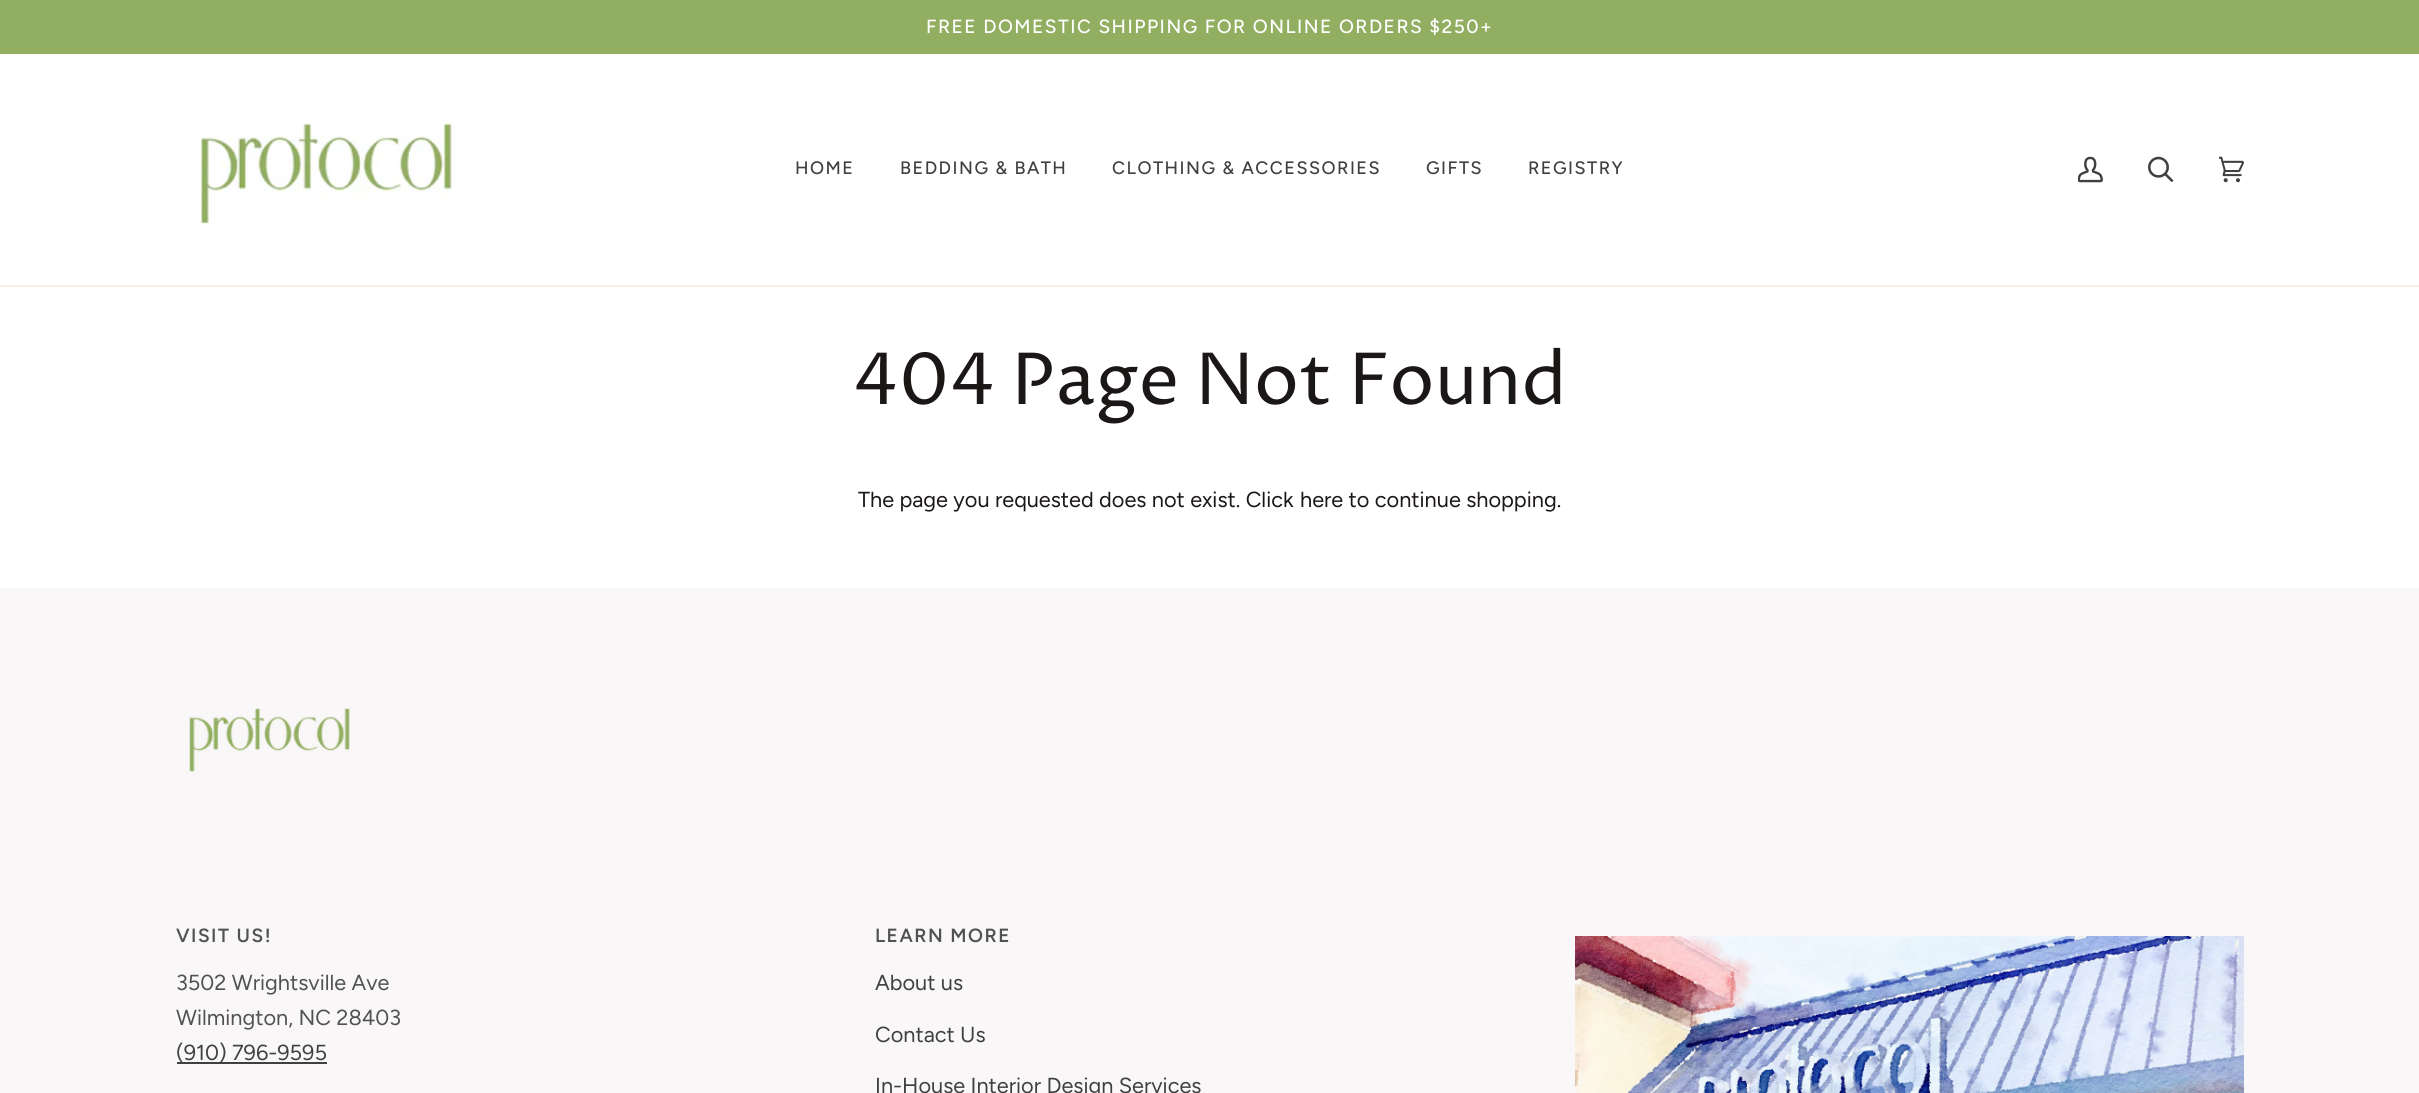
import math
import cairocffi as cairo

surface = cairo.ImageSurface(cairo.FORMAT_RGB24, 2419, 1093)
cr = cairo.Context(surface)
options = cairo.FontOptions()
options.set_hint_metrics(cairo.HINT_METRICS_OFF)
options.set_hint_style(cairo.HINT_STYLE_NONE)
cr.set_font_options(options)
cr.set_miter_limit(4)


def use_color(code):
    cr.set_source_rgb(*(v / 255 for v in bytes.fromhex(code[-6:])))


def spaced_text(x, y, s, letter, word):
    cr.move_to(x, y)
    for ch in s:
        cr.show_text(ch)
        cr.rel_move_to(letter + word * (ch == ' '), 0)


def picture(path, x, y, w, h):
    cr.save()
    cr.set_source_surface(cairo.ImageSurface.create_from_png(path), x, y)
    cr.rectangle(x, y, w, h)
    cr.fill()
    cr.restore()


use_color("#ffffff")
cr.paint()
use_color("#92ae61")
cr.rectangle(0, 0, 2419, 54)
cr.fill()
cr.select_font_face("Figtree Medium")
cr.set_font_size(19.1)
use_color("#ffffff")
spaced_text(926, 33, "FREE DOMESTIC SHIPPING FOR ONLINE ORDERS $250+", 1.5, 0)
use_color("#f5efe8")
cr.rectangle(0, 285, 2419, 2)
cr.fill()
picture("img1.png", 200, 123, 254, 102)
cr.set_font_size(18)
use_color("#404040")
spaced_text(795, 174, "HOME", 1.5, 0)
spaced_text(900, 174, "BEDDING & BATH", 1.5, 0)
spaced_text(1112, 174, "CLOTHING & ACCESSORIES", 1.5, 0)
spaced_text(1426, 174, "GIFTS", 1.5, 0)
spaced_text(1528, 174, "REGISTRY", 1.5, 0)
picture("img2.png", 2078, 156, 25, 27)
picture("img3.png", 2148, 156, 26, 27)
picture("img4.png", 2219, 156, 25, 27)
cr.select_font_face("Proza Libre")
cr.set_font_size(71.75)
use_color("#1c1717")
cr.move_to(853, 404)
cr.show_text("404 Page Not Found")
cr.select_font_face("Figtree")
cr.set_font_size(21.75)
cr.move_to(858, 507)
cr.show_text("The page you requested does not exist. Click")
cr.move_to(1300, 507)
cr.show_text("here to continue shopping.")
use_color("#f9f7f7")
cr.rectangle(0, 588, 2419, 505)
cr.fill()
picture("img5.png", 189, 708, 161, 64)
cr.select_font_face("Figtree SemiBold")
cr.set_font_size(19.1)
use_color("#535252")
spaced_text(176, 942, "VISIT US!", 1.5, 0)
cr.select_font_face("Figtree")
cr.set_font_size(21.75)
cr.move_to(176, 990)
cr.show_text("3502 Wrightsville Ave")
cr.move_to(176, 1025)
cr.show_text("Wilmington, NC 28403")
use_color("#404040")
cr.rectangle(177, 1062, 150, 2)
cr.fill()
cr.move_to(176, 1060)
cr.show_text("(910) 796-9595")
cr.select_font_face("Figtree SemiBold")
cr.set_font_size(19.1)
use_color("#535252")
spaced_text(875, 942, "LEARN MORE", 1.5, 0)
cr.select_font_face("Figtree")
cr.set_font_size(21.75)
use_color("#404040")
cr.move_to(875, 990)
cr.show_text("About us")
cr.move_to(875, 1042)
cr.show_text("Contact Us")
cr.move_to(875, 1093)
cr.show_text("In-House Interior Design Services")
picture("img6.png", 1575, 936, 669, 157)
surface.write_to_png("result.png")
